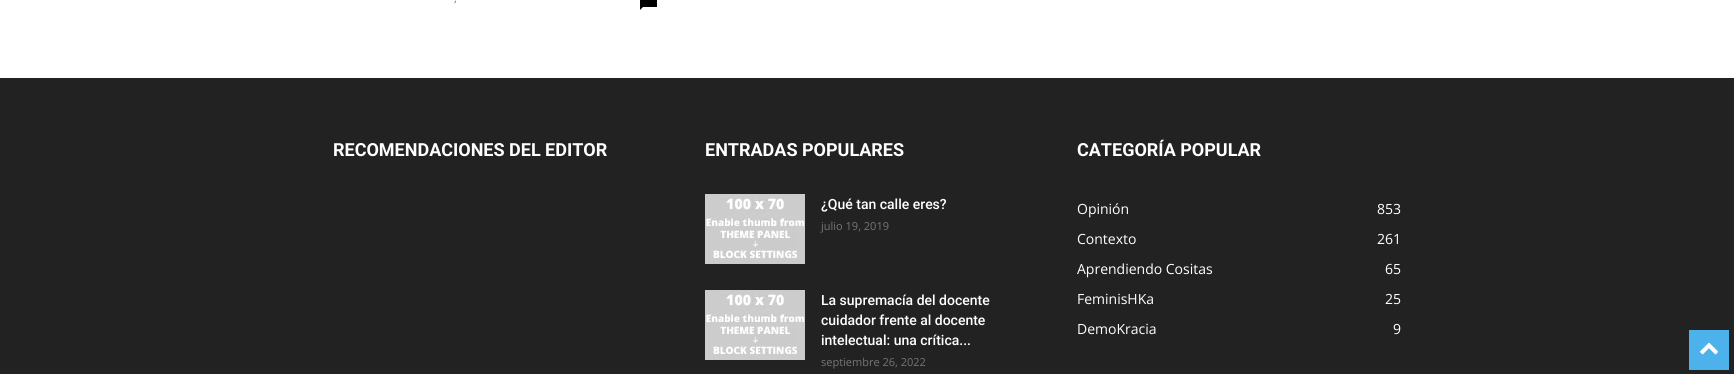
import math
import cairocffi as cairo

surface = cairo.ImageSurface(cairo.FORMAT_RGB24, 1734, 374)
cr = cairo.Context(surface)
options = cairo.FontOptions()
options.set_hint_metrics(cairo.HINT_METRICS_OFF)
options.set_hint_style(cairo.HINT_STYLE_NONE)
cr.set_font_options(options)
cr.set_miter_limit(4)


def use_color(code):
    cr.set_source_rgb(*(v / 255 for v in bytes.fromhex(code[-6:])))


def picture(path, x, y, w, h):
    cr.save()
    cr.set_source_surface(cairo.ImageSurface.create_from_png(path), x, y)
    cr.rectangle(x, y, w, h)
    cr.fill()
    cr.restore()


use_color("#ffffff")
cr.paint()
cr.select_font_face("Open Sans")
cr.set_font_size(11)
use_color("#767676")
cr.move_to(454, 2)
cr.show_text(",")
use_color("#000000")
cr.rectangle(640, 0, 17, 7)
cr.fill()
cr.new_path()
cr.move_to(640, 7)
cr.line_to(643, 7)
cr.line_to(640, 10)
cr.close_path()
cr.fill()
use_color("#222222")
cr.rectangle(0, 78, 1734, 296)
cr.fill()
cr.select_font_face("Roboto", cairo.FONT_SLANT_NORMAL, cairo.FONT_WEIGHT_BOLD)
cr.set_font_size(18)
use_color("#ffffff")
cr.move_to(333, 156)
cr.show_text("RECOMENDACIONES DEL EDITOR")
cr.move_to(705, 156)
cr.show_text("ENTRADAS POPULARES")
picture("img1.png", 705, 194, 100, 70)
cr.select_font_face("Roboto Medium")
cr.set_font_size(14)
cr.move_to(821, 209)
cr.show_text("¿Qué tan calle eres?")
cr.select_font_face("Open Sans")
cr.set_font_size(11)
use_color("#767676")
cr.move_to(821, 230)
cr.show_text("julio 19, 2019")
picture("img1.png", 705, 290, 100, 70)
cr.select_font_face("Roboto Medium")
cr.set_font_size(14)
use_color("#ffffff")
cr.move_to(821, 305)
cr.show_text("La supremacía del docente")
cr.move_to(821, 325)
cr.show_text("cuidador frente al docente")
cr.move_to(821, 345)
cr.show_text("intelectual: una crítica...")
cr.select_font_face("Open Sans")
cr.set_font_size(11)
use_color("#767676")
cr.move_to(821, 366)
cr.show_text("septiembre 26, 2022")
cr.select_font_face("Roboto", cairo.FONT_SLANT_NORMAL, cairo.FONT_WEIGHT_BOLD)
cr.set_font_size(18)
use_color("#ffffff")
cr.move_to(1077, 156)
cr.show_text("CATEGORÍA POPULAR")
cr.select_font_face("Open Sans")
cr.set_font_size(14)
cr.move_to(1077, 214)
cr.show_text("Opinión")
cr.move_to(1377, 214)
cr.show_text("853")
cr.move_to(1077, 244)
cr.show_text("Contexto")
cr.move_to(1377, 244)
cr.show_text("261")
cr.move_to(1077, 274)
cr.show_text("Aprendiendo Cositas")
cr.move_to(1385, 274)
cr.show_text("65")
cr.move_to(1077, 304)
cr.show_text("FeminisHKa")
cr.move_to(1385, 304)
cr.show_text("25")
cr.move_to(1077, 334)
cr.show_text("DemoKracia")
cr.move_to(1393, 334)
cr.show_text("9")
use_color("#4db2ec")
cr.rectangle(1689, 330, 40, 40)
cr.fill()
picture("img2.png", 1700, 342, 18, 13)
surface.write_to_png("result.png")
